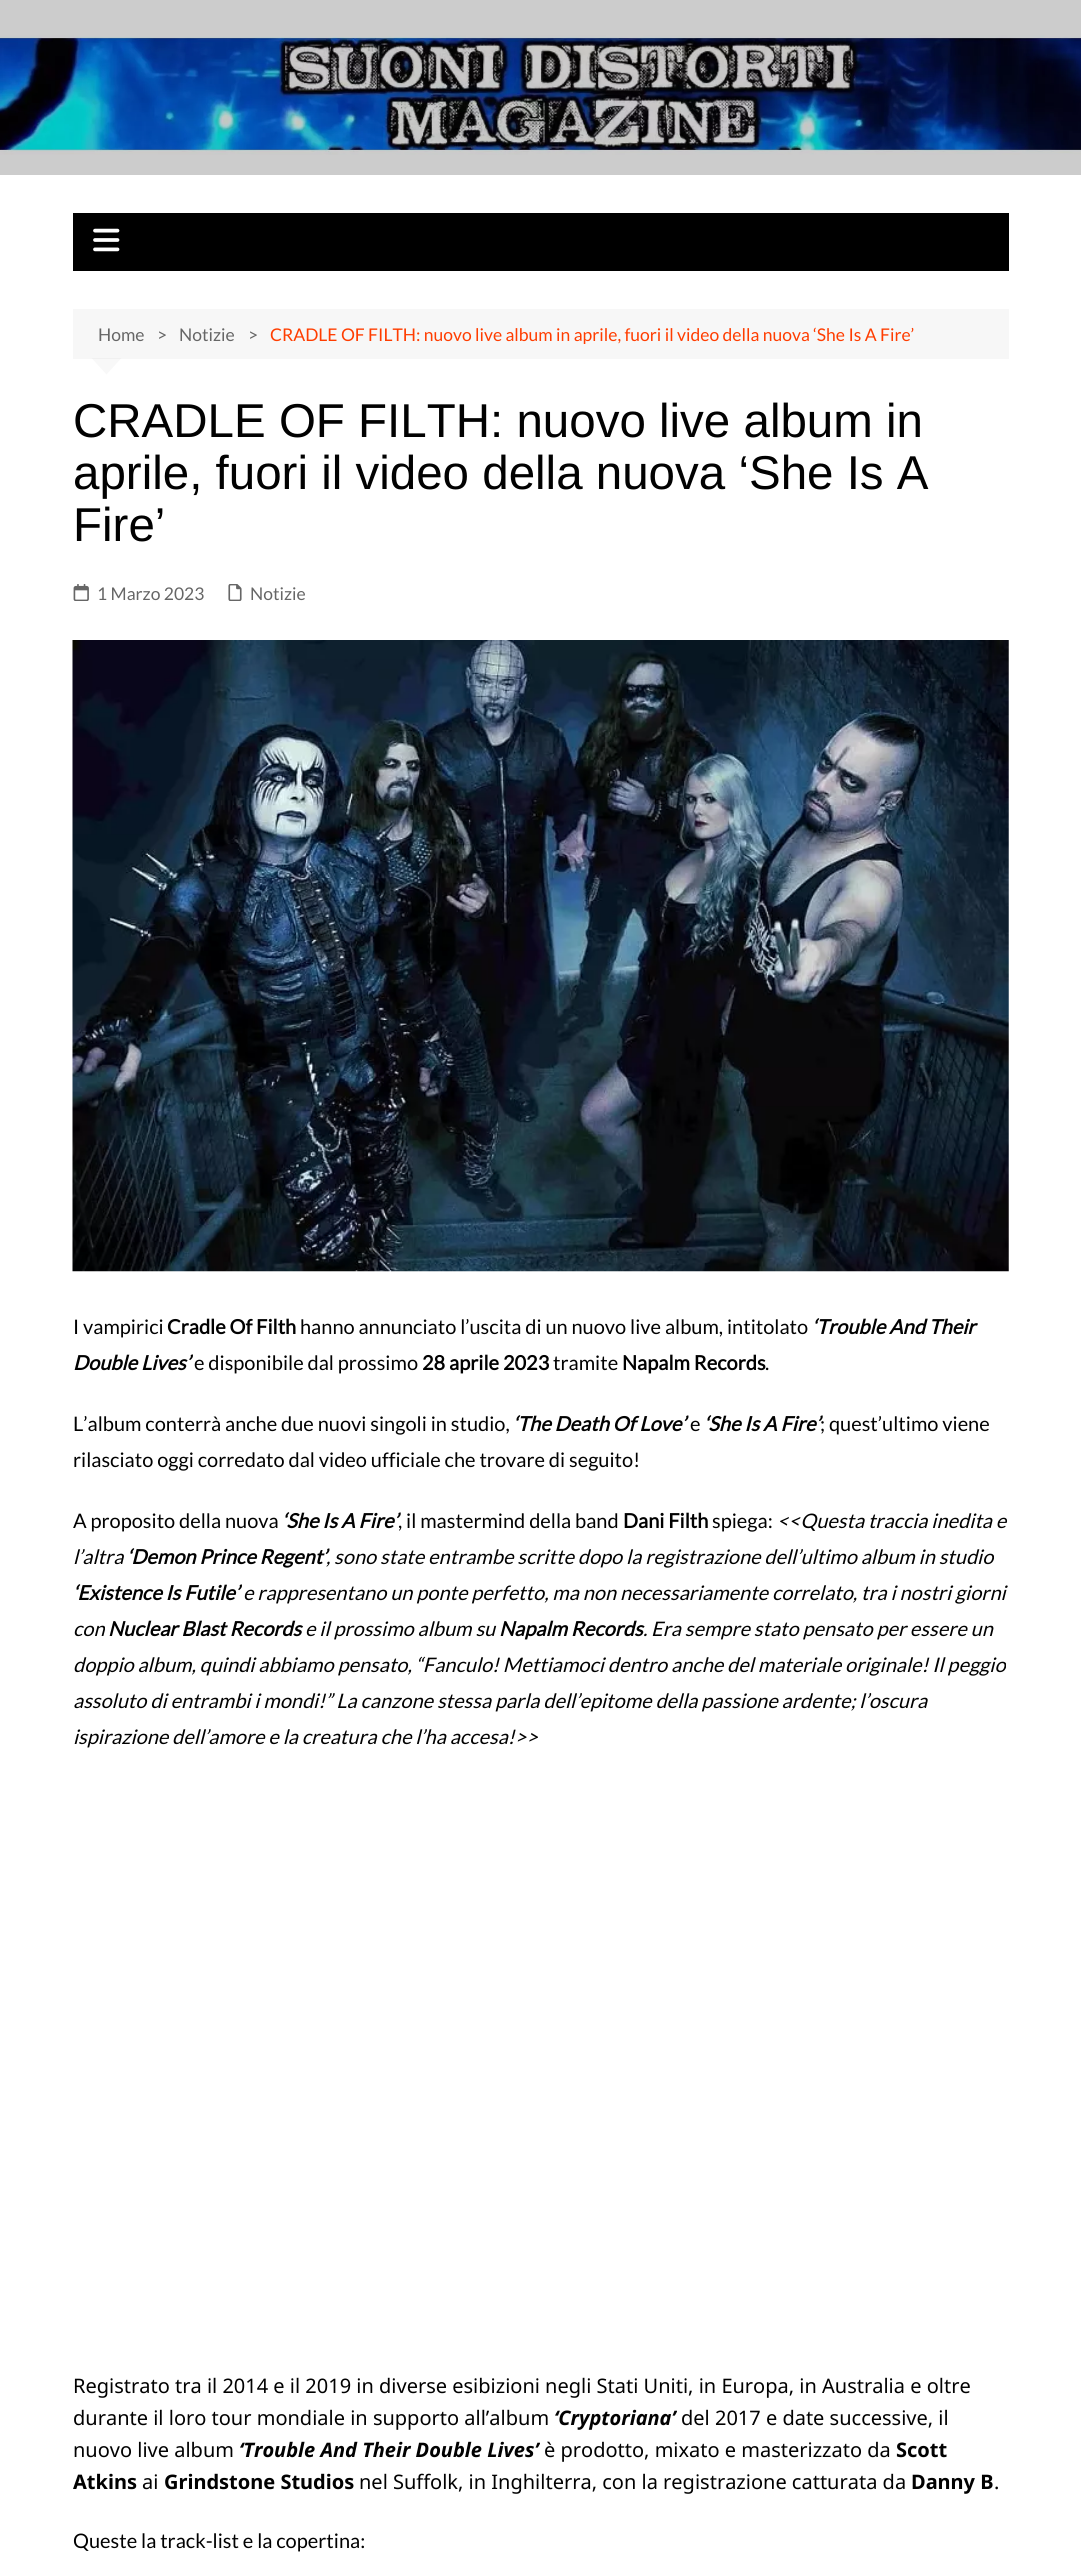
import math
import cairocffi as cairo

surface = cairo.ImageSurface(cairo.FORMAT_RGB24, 1081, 2576)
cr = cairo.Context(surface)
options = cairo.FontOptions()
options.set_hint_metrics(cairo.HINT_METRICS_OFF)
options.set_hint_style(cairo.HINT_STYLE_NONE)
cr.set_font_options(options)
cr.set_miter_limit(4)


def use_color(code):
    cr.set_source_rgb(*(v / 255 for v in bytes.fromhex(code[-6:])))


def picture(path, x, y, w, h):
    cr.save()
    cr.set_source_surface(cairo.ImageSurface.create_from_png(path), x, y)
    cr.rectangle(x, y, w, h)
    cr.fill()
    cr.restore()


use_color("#ffffff")
cr.paint()
use_color("#cccccc")
cr.rectangle(0, 0, 1081, 175)
cr.fill()
picture("img1.png", 0, 35, 1081, 120)
use_color("#000000")
cr.rectangle(73, 213, 936, 58)
cr.fill()
picture("img2.png", 93, 228, 27, 24)
use_color("#f7f7f7")
cr.rectangle(73, 309, 936, 50)
cr.fill()
cr.select_font_face("Lato")
cr.set_font_size(17.5)
use_color("#666666")
cr.move_to(98, 341)
cr.show_text("Home")
cr.move_to(157, 341)
cr.show_text(">")
cr.move_to(179, 341)
cr.show_text("Notizie")
cr.move_to(248, 341)
cr.show_text(">")
use_color("#ff3d00")
cr.move_to(270, 341)
cr.show_text("CRADLE OF FILTH: nuovo live album in aprile, fuori il video della nuova ‘She Is A Fire’")
cr.set_source_rgba(0, 0, 0, 0.03)
cr.new_path()
cr.move_to(91.5, 358)
cr.line_to(121.5, 358)
cr.line_to(106.5, 374.5)
cr.close_path()
cr.fill()
cr.select_font_face("Liberation Sans")
cr.set_font_size(47.5)
use_color("#010101")
cr.move_to(73, 437)
cr.show_text("CRADLE OF FILTH: nuovo live album in")
cr.move_to(73, 489)
cr.show_text("aprile, fuori il video della nuova ‘She Is A")
cr.move_to(73, 541)
cr.show_text("Fire’")
picture("img3.png", 73, 584, 16, 17)
cr.select_font_face("Lato")
cr.set_font_size(17.5)
use_color("#666666")
cr.move_to(97, 600)
cr.show_text("1 Marzo 2023")
picture("img4.png", 228, 584, 14, 17)
cr.move_to(250, 600)
cr.show_text("Notizie")
picture("img5.png", 72, 640, 937, 632)
cr.set_font_size(20)
use_color("#010101")
cr.move_to(73, 1334)
cr.show_text("I vampirici")
cr.select_font_face("Lato", cairo.FONT_SLANT_NORMAL, cairo.FONT_WEIGHT_BOLD)
cr.move_to(167, 1334)
cr.show_text("Cradle Of Filth")
cr.select_font_face("Lato")
cr.move_to(300, 1334)
cr.show_text("hanno annunciato l’uscita di un nuovo live album, intitolato")
cr.select_font_face("Lato", cairo.FONT_SLANT_ITALIC, cairo.FONT_WEIGHT_BOLD)
cr.move_to(812, 1334)
cr.show_text("‘Trouble And Their")
cr.move_to(73, 1370)
cr.show_text("Double Lives’")
cr.select_font_face("Lato")
cr.move_to(194, 1370)
cr.show_text("e disponibile dal prossimo")
cr.select_font_face("Lato", cairo.FONT_SLANT_NORMAL, cairo.FONT_WEIGHT_BOLD)
cr.move_to(422, 1370)
cr.show_text("28 aprile 2023")
cr.select_font_face("Lato")
cr.move_to(553, 1370)
cr.show_text("tramite")
cr.select_font_face("Lato", cairo.FONT_SLANT_NORMAL, cairo.FONT_WEIGHT_BOLD)
cr.move_to(622, 1370)
cr.show_text("Napalm Records")
cr.select_font_face("Lato")
cr.move_to(765, 1370)
cr.show_text(".")
cr.move_to(73, 1431)
cr.show_text("L’album conterrà anche due nuovi singoli in studio,")
cr.select_font_face("Lato", cairo.FONT_SLANT_ITALIC, cairo.FONT_WEIGHT_BOLD)
cr.move_to(513, 1431)
cr.show_text("‘The Death Of Love’")
cr.select_font_face("Lato")
cr.move_to(690, 1431)
cr.show_text("e")
cr.select_font_face("Lato", cairo.FONT_SLANT_ITALIC, cairo.FONT_WEIGHT_BOLD)
cr.move_to(704, 1431)
cr.show_text("‘She Is A Fire’")
cr.select_font_face("Lato")
cr.move_to(820, 1431)
cr.show_text("; quest’ultimo viene")
cr.move_to(73, 1467)
cr.show_text("rilasciato oggi corredato dal video ufficiale che trovare di seguito!")
cr.move_to(73, 1528)
cr.show_text("A proposito della nuova")
cr.select_font_face("Lato", cairo.FONT_SLANT_ITALIC, cairo.FONT_WEIGHT_BOLD)
cr.move_to(282, 1528)
cr.show_text("‘She Is A Fire’")
cr.select_font_face("Lato")
cr.move_to(398, 1528)
cr.show_text(", il mastermind della band")
cr.select_font_face("Lato", cairo.FONT_SLANT_NORMAL, cairo.FONT_WEIGHT_BOLD)
cr.move_to(623, 1528)
cr.show_text("Dani Filth")
cr.select_font_face("Lato")
cr.move_to(712, 1528)
cr.show_text("spiega:")
cr.select_font_face("Lato", cairo.FONT_SLANT_ITALIC)
cr.move_to(777, 1528)
cr.show_text("<<Questa traccia inedita e")
cr.move_to(73, 1564)
cr.show_text("l’altra")
cr.select_font_face("Lato", cairo.FONT_SLANT_ITALIC, cairo.FONT_WEIGHT_BOLD)
cr.move_to(127, 1564)
cr.show_text("‘Demon Prince Regent’")
cr.select_font_face("Lato", cairo.FONT_SLANT_ITALIC)
cr.move_to(326, 1564)
cr.show_text(", sono state entrambe scritte dopo la registrazione dell’ultimo album in studio")
cr.select_font_face("Lato", cairo.FONT_SLANT_ITALIC, cairo.FONT_WEIGHT_BOLD)
cr.move_to(73, 1600)
cr.show_text("‘Existence Is Futile’")
cr.select_font_face("Lato", cairo.FONT_SLANT_ITALIC)
cr.move_to(243, 1600)
cr.show_text("e rappresentano un ponte perfetto, ma non necessariamente correlato, tra i nostri giorni")
cr.move_to(73, 1636)
cr.show_text("con")
cr.select_font_face("Lato", cairo.FONT_SLANT_ITALIC, cairo.FONT_WEIGHT_BOLD)
cr.move_to(108, 1636)
cr.show_text("Nuclear Blast Records")
cr.select_font_face("Lato", cairo.FONT_SLANT_ITALIC)
cr.move_to(305, 1636)
cr.show_text("e il prossimo album su")
cr.select_font_face("Lato", cairo.FONT_SLANT_ITALIC, cairo.FONT_WEIGHT_BOLD)
cr.move_to(499, 1636)
cr.show_text("Napalm Records")
cr.select_font_face("Lato", cairo.FONT_SLANT_ITALIC)
cr.move_to(643, 1636)
cr.show_text(". Era sempre stato pensato per essere un")
cr.move_to(73, 1672)
cr.show_text("doppio album, quindi abbiamo pensato, “Fanculo! Mettiamoci dentro anche del materiale originale! Il peggio")
cr.move_to(73, 1708)
cr.show_text("assoluto di entrambi i mondi!” La canzone stessa parla dell’epitome della passione ardente; l’oscura")
cr.move_to(73, 1744)
cr.show_text("ispirazione dell’amore e la creatura che l’ha accesa!>>")
cr.select_font_face("Noto Sans")
cr.move_to(73, 2393)
cr.show_text("Registrato tra il 2014 e il 2019 in diverse esibizioni negli Stati Uniti, in Europa, in Australia e oltre")
cr.move_to(73, 2425)
cr.show_text("durante il loro tour mondiale in supporto all’album")
cr.select_font_face("Noto Sans", cairo.FONT_SLANT_ITALIC, cairo.FONT_WEIGHT_BOLD)
cr.move_to(554, 2425)
cr.show_text("‘Cryptoriana’")
cr.select_font_face("Noto Sans")
cr.move_to(681, 2425)
cr.show_text("del 2017 e date successive, il")
cr.move_to(73, 2457)
cr.show_text("nuovo live album")
cr.select_font_face("Noto Sans", cairo.FONT_SLANT_ITALIC, cairo.FONT_WEIGHT_BOLD)
cr.move_to(239, 2457)
cr.show_text("‘Trouble And Their Double Lives’")
cr.select_font_face("Noto Sans")
cr.move_to(544, 2457)
cr.show_text("è prodotto, mixato e masterizzato da")
cr.select_font_face("Noto Sans", cairo.FONT_SLANT_NORMAL, cairo.FONT_WEIGHT_BOLD)
cr.move_to(896, 2457)
cr.show_text("Scott")
cr.move_to(73, 2489)
cr.show_text("Atkins")
cr.select_font_face("Noto Sans")
cr.move_to(142, 2489)
cr.show_text("ai")
cr.select_font_face("Noto Sans", cairo.FONT_SLANT_NORMAL, cairo.FONT_WEIGHT_BOLD)
cr.move_to(164, 2489)
cr.show_text("Grindstone Studios")
cr.select_font_face("Noto Sans")
cr.move_to(359, 2489)
cr.show_text("nel Suffolk, in Inghilterra, con la registrazione catturata da")
cr.select_font_face("Noto Sans", cairo.FONT_SLANT_NORMAL, cairo.FONT_WEIGHT_BOLD)
cr.move_to(911, 2489)
cr.show_text("Danny B")
cr.select_font_face("Noto Sans")
cr.move_to(994, 2489)
cr.show_text(".")
cr.select_font_face("Lato")
cr.move_to(73, 2548)
cr.show_text("Queste la track-list e la copertina:")
surface.write_to_png("result.png")
